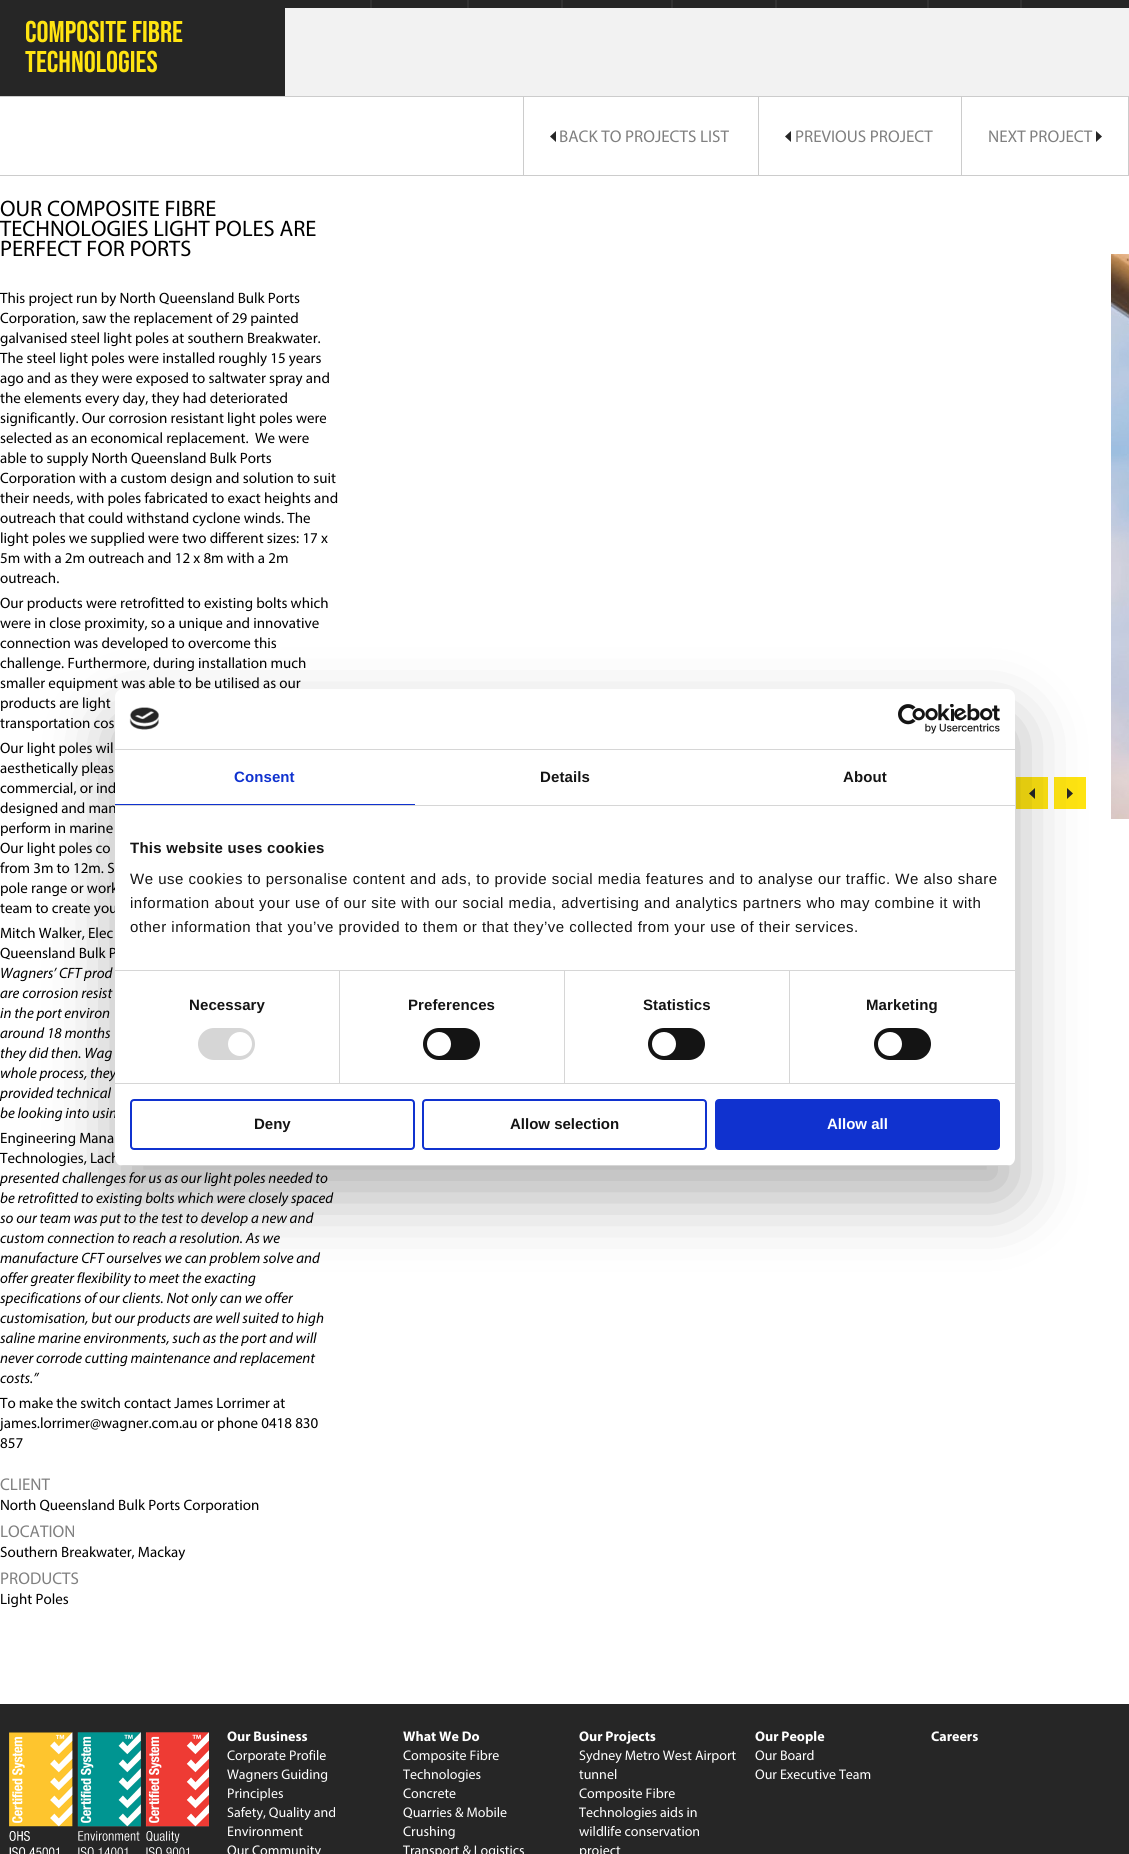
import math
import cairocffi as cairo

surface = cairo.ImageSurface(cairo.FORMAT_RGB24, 1129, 1854)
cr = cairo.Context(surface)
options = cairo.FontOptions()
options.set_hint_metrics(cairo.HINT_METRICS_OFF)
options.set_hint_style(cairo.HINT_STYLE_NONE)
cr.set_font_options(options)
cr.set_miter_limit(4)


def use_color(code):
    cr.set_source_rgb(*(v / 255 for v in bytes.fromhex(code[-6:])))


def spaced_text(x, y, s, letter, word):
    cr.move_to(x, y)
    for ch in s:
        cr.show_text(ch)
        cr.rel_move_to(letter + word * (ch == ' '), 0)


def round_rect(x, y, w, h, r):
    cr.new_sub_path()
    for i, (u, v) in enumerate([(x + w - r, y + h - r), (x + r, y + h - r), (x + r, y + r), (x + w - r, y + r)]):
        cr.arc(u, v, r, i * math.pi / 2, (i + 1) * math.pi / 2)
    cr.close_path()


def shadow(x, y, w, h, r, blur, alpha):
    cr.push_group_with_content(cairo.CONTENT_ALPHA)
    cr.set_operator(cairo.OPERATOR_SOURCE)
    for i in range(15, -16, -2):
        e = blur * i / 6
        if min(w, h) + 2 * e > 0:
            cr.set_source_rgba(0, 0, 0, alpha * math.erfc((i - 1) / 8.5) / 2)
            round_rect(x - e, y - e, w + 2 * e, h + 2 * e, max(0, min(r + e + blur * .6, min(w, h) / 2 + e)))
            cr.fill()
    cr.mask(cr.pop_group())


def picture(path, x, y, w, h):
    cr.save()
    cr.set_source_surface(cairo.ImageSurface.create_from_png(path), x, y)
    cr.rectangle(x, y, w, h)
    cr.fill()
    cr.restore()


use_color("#ffffff")
cr.paint()
use_color("#262626")
cr.rectangle(0, 0, 285, 96)
cr.fill()
cr.rectangle(277, 0, 852, 8)
cr.fill()
use_color("#333333")
cr.rectangle(370, 0, 2, 8)
cr.fill()
cr.rectangle(467, 0, 2, 8)
cr.fill()
cr.rectangle(561, 0, 2, 8)
cr.fill()
cr.rectangle(671, 0, 2, 8)
cr.fill()
cr.rectangle(775, 0, 2, 8)
cr.fill()
cr.rectangle(927, 0, 2, 8)
cr.fill()
cr.rectangle(1020, 0, 2, 8)
cr.fill()
use_color("#f2f2f2")
cr.rectangle(285, 8, 844, 88)
cr.fill()
cr.select_font_face("Bebas Neue")
cr.set_font_size(30)
use_color("#ffe411")
cr.move_to(25, 42)
cr.show_text("Composite Fibre")
cr.move_to(25, 72)
cr.show_text("Technologies")
use_color("#cccccc")
cr.rectangle(0, 96, 1129, 1)
cr.fill()
cr.rectangle(0, 175, 1129, 1)
cr.fill()
cr.rectangle(523, 97, 1, 78)
cr.fill()
picture("img1.png", 550, 131, 6, 11)
cr.select_font_face("Myriad")
cr.set_font_size(17)
use_color("#808080")
cr.move_to(559, 142)
cr.show_text("BACK TO PROJECTS LIST")
use_color("#cccccc")
cr.rectangle(758, 97, 1, 78)
cr.fill()
picture("img1.png", 785, 131, 6, 11)
use_color("#808080")
cr.move_to(795, 142)
cr.show_text("PREVIOUS PROJECT")
use_color("#cccccc")
cr.rectangle(1128, 97, 1, 78)
cr.fill()
cr.rectangle(961, 97, 1, 78)
cr.fill()
use_color("#808080")
cr.move_to(988, 142)
cr.show_text("NEXT PROJECT")
picture("img2.png", 1096, 131, 6, 11)
cr.set_font_size(22.5)
use_color("#000000")
cr.move_to(0, 216)
cr.show_text("OUR COMPOSITE FIBRE")
cr.move_to(0, 236)
cr.show_text("TECHNOLOGIES LIGHT POLES ARE")
cr.move_to(0, 256)
cr.show_text("PERFECT FOR PORTS")
cr.set_font_size(15)
cr.move_to(0, 303)
cr.show_text("This project run by North Queensland Bulk Ports")
cr.move_to(0, 323)
cr.show_text("Corporation, saw the replacement of 29 painted")
cr.move_to(0, 343)
cr.show_text("galvanised steel light poles at southern Breakwater.")
cr.move_to(0, 363)
cr.show_text("The steel light poles were installed roughly 15 years")
cr.move_to(0, 383)
cr.show_text("ago and as they were exposed to saltwater spray and")
cr.move_to(0, 403)
cr.show_text("the elements every day, they had deteriorated")
cr.move_to(0, 423)
cr.show_text("significantly. Our corrosion resistant light poles were")
cr.move_to(0, 443)
cr.show_text("selected as an economical replacement.  We were")
cr.move_to(0, 463)
cr.show_text("able to supply North Queensland Bulk Ports")
cr.move_to(0, 483)
cr.show_text("Corporation with a custom design and solution to suit")
cr.move_to(0, 503)
cr.show_text("their needs, with poles fabricated to exact heights and")
cr.move_to(0, 523)
cr.show_text("outreach that could withstand cyclone winds. The")
cr.move_to(0, 543)
cr.show_text("light poles we supplied were two different sizes: 17 x")
cr.move_to(0, 563)
cr.show_text("5m with a 2m outreach and 12 x 8m with a 2m")
cr.move_to(0, 583)
cr.show_text("outreach.")
cr.move_to(0, 608)
cr.show_text("Our products were retrofitted to existing bolts which")
cr.move_to(0, 628)
cr.show_text("were in close proximity, so a unique and innovative")
cr.move_to(0, 648)
cr.show_text("connection was developed to overcome this")
cr.move_to(0, 668)
cr.show_text("challenge. Furthermore, during installation much")
cr.move_to(0, 688)
cr.show_text("smaller equipment was able to be utilised as our")
cr.move_to(0, 708)
cr.show_text("products are light")
cr.move_to(0, 728)
cr.show_text("transportation cos")
cr.move_to(0, 753)
cr.show_text("Our light poles wil")
cr.move_to(0, 773)
cr.show_text("aesthetically pleas")
cr.move_to(0, 793)
cr.show_text("commercial, or ind")
cr.move_to(0, 813)
cr.show_text("designed and man")
cr.move_to(0, 833)
cr.show_text("perform in marine")
cr.move_to(0, 853)
cr.show_text("Our light poles co")
cr.move_to(0, 873)
cr.show_text("from 3m to 12m. S")
cr.move_to(0, 893)
cr.show_text("pole range or work")
cr.move_to(0, 913)
cr.show_text("team to create you")
cr.move_to(0, 938)
cr.show_text("Mitch Walker, Elec")
cr.move_to(0, 958)
cr.show_text("Queensland Bulk P")
cr.select_font_face("Myriad", cairo.FONT_SLANT_ITALIC)
cr.move_to(0, 978)
cr.show_text("Wagners’ CFT prod")
cr.move_to(0, 998)
cr.show_text("are corrosion resist")
cr.move_to(0, 1018)
cr.show_text("in the port environ")
cr.move_to(0, 1038)
cr.show_text("around 18 months")
cr.move_to(0, 1058)
cr.show_text("they did then. Wag")
cr.move_to(0, 1078)
cr.show_text("whole process, they")
cr.move_to(0, 1098)
cr.show_text("provided technical")
cr.move_to(0, 1118)
cr.show_text("be looking into usin")
cr.select_font_face("Myriad")
cr.move_to(0, 1143)
cr.show_text("Engineering Mana")
cr.move_to(0, 1163)
cr.show_text("Technologies, Lach")
cr.select_font_face("Myriad", cairo.FONT_SLANT_ITALIC)
cr.move_to(0, 1183)
cr.show_text("presented challenges for us as our light poles needed to")
cr.move_to(0, 1203)
cr.show_text("be retrofitted to existing bolts which were closely spaced")
cr.move_to(0, 1223)
cr.show_text("so our team was put to the test to develop a new and")
cr.move_to(0, 1243)
cr.show_text("custom connection to reach a resolution. As we")
cr.move_to(0, 1263)
cr.show_text("manufacture CFT ourselves we can problem solve and")
cr.move_to(0, 1283)
cr.show_text("offer greater flexibility to meet the exacting")
cr.move_to(0, 1303)
cr.show_text("specifications of our clients. Not only can we offer")
cr.move_to(0, 1323)
cr.show_text("customisation, but our products are well suited to high")
cr.move_to(0, 1343)
cr.show_text("saline marine environments, such as the port and will")
cr.move_to(0, 1363)
cr.show_text("never corrode cutting maintenance and replacement")
cr.move_to(0, 1383)
cr.show_text("costs.”")
cr.select_font_face("Myriad")
cr.move_to(0, 1408)
cr.show_text("To make the switch contact James Lorrimer at")
cr.move_to(0, 1428)
cr.show_text("james.lorrimer@wagner.com.au or phone 0418 830")
cr.move_to(0, 1448)
cr.show_text("857")
cr.set_font_size(17)
use_color("#808080")
cr.move_to(0, 1490)
cr.show_text("CLIENT")
cr.set_font_size(15)
use_color("#000000")
cr.move_to(0, 1510)
cr.show_text("North Queensland Bulk Ports Corporation")
cr.set_font_size(17)
use_color("#808080")
cr.move_to(0, 1537)
cr.show_text("LOCATION")
cr.set_font_size(15)
use_color("#000000")
cr.move_to(0, 1557)
cr.show_text("Southern Breakwater, Mackay")
cr.set_font_size(17)
use_color("#808080")
cr.move_to(0, 1584)
cr.show_text("PRODUCTS")
cr.set_font_size(15)
use_color("#000000")
cr.move_to(0, 1604)
cr.show_text("Light Poles")
use_color("#ffe411")
cr.rectangle(1016, 777, 32, 32)
cr.fill()
picture("img3.png", 1029, 788, 6, 11)
cr.rectangle(1054, 777, 32, 32)
cr.fill()
picture("img4.png", 1067, 788, 6, 11)
picture("img5.png", 1111, 254, 18, 565)
use_color("#000000")
shadow(115, 721, 900, 477, 8, 34, 0.3)
use_color("#ffffff")
round_rect(115, 689, 900, 477, 8)
cr.fill()
use_color("#d6d6d6")
cr.rectangle(115, 749, 900, 1)
cr.fill()
picture("img6.png", 129, 707, 30, 23)
picture("img7.png", 898, 704, 102, 30)
cr.rectangle(115, 805, 900, 1)
cr.fill()
use_color("#1032cf")
cr.rectangle(115, 804, 300, 1)
cr.fill()
cr.select_font_face("Liberation Sans", cairo.FONT_SLANT_NORMAL, cairo.FONT_WEIGHT_BOLD)
spaced_text(234, 782, "Consent", 0.1, 0)
use_color("#141414")
spaced_text(540, 782, "Details", 0.1, 0)
spaced_text(843, 782, "About", 0.1, 0)
use_color("#d6d6d6")
cr.rectangle(115, 970, 900, 1)
cr.fill()
use_color("#141414")
spaced_text(130, 853, "This website uses cookies", 0.25, 0)
cr.select_font_face("Liberation Sans")
spaced_text(130, 884, "We use cookies to personalise content and ads, to provide social media features and to analyse our traffic. We also share", 0.5, 0)
spaced_text(130, 908, "information about your use of our site with our social media, advertising and analytics partners who may combine it with", 0.5, 0)
spaced_text(130, 932, "other information that you’ve provided to them or that they’ve collected from your use of their services.", 0.5, 0)
use_color("#d6d6d6")
cr.rectangle(115, 1083, 900, 1)
cr.fill()
cr.rectangle(339, 971, 1, 112)
cr.fill()
cr.select_font_face("Liberation Sans", cairo.FONT_SLANT_NORMAL, cairo.FONT_WEIGHT_BOLD)
use_color("#141414")
spaced_text(189, 1010, "Necessary", 0.1, 0)
use_color("#d6d6d6")
round_rect(198, 1028, 57, 32, 16)
cr.fill()
use_color("#ffffff")
cr.arc(240, 1044, 12, 0, 2 * math.pi)
cr.fill()
use_color("#d6d6d6")
cr.rectangle(564, 971, 1, 112)
cr.fill()
use_color("#141414")
spaced_text(408, 1010, "Preferences", 0.1, 0)
round_rect(423, 1028, 57, 32, 16)
cr.fill()
use_color("#ffffff")
cr.arc(439, 1044, 12, 0, 2 * math.pi)
cr.fill()
use_color("#d6d6d6")
cr.rectangle(789, 971, 1, 112)
cr.fill()
use_color("#141414")
spaced_text(643, 1010, "Statistics", 0.1, 0)
round_rect(648, 1028, 57, 32, 16)
cr.fill()
use_color("#ffffff")
cr.arc(664, 1044, 12, 0, 2 * math.pi)
cr.fill()
use_color("#141414")
spaced_text(866, 1010, "Marketing", 0.1, 0)
round_rect(874, 1028, 57, 32, 16)
cr.fill()
use_color("#ffffff")
cr.arc(890, 1044, 12, 0, 2 * math.pi)
cr.fill()
cr.save()
round_rect(115, 689, 900, 477, 8)
cr.clip()
use_color("#d6d6d6")
cr.rectangle(115, 1165, 900, 1)
cr.fill()
cr.restore()
round_rect(131, 1100, 283, 49, 3)
use_color("#1032cf")
cr.stroke()
use_color("#141414")
cr.move_to(254, 1129)
cr.show_text("Deny")
round_rect(423, 1100, 283, 49, 3)
use_color("#1032cf")
cr.stroke()
use_color("#141414")
cr.move_to(510, 1129)
cr.show_text("Allow selection")
use_color("#1032cf")
round_rect(716, 1100, 283, 49, 3)
cr.fill_preserve()
cr.stroke()
use_color("#ffffff")
cr.move_to(827, 1129)
cr.show_text("Allow all")
use_color("#262626")
cr.rectangle(0, 1704, 1129, 150)
cr.fill()
picture("img8.png", 9, 1732, 200, 122)
cr.select_font_face("Myriad", cairo.FONT_SLANT_NORMAL, cairo.FONT_WEIGHT_BOLD)
cr.set_font_size(14)
use_color("#ffffff")
cr.move_to(227, 1741)
cr.show_text("Our Business")
cr.select_font_face("Myriad")
cr.move_to(227, 1760)
cr.show_text("Corporate Profile")
cr.move_to(227, 1779)
cr.show_text("Wagners Guiding")
cr.move_to(227, 1798)
cr.show_text("Principles")
cr.move_to(227, 1817)
cr.show_text("Safety, Quality and")
cr.move_to(227, 1836)
cr.show_text("Environment")
cr.move_to(227, 1855)
cr.show_text("Our Community")
cr.select_font_face("Myriad", cairo.FONT_SLANT_NORMAL, cairo.FONT_WEIGHT_BOLD)
cr.move_to(403, 1741)
cr.show_text("What We Do")
cr.select_font_face("Myriad")
cr.move_to(403, 1760)
cr.show_text("Composite Fibre")
cr.move_to(403, 1779)
cr.show_text("Technologies")
cr.move_to(403, 1798)
cr.show_text("Concrete")
cr.move_to(403, 1817)
cr.show_text("Quarries & Mobile")
cr.move_to(403, 1836)
cr.show_text("Crushing")
cr.move_to(403, 1855)
cr.show_text("Transport & Logistics")
cr.select_font_face("Myriad", cairo.FONT_SLANT_NORMAL, cairo.FONT_WEIGHT_BOLD)
cr.move_to(579, 1741)
cr.show_text("Our Projects")
cr.select_font_face("Myriad")
cr.move_to(579, 1760)
cr.show_text("Sydney Metro West Airport")
cr.move_to(579, 1779)
cr.show_text("tunnel")
cr.move_to(579, 1798)
cr.show_text("Composite Fibre")
cr.move_to(579, 1817)
cr.show_text("Technologies aids in")
cr.move_to(579, 1836)
cr.show_text("wildlife conservation")
cr.move_to(579, 1855)
cr.show_text("project")
cr.select_font_face("Myriad", cairo.FONT_SLANT_NORMAL, cairo.FONT_WEIGHT_BOLD)
cr.move_to(755, 1741)
cr.show_text("Our People")
cr.select_font_face("Myriad")
cr.move_to(755, 1760)
cr.show_text("Our Board")
cr.move_to(755, 1779)
cr.show_text("Our Executive Team")
cr.select_font_face("Myriad", cairo.FONT_SLANT_NORMAL, cairo.FONT_WEIGHT_BOLD)
cr.move_to(931, 1741)
cr.show_text("Careers")
surface.write_to_png("result.png")
